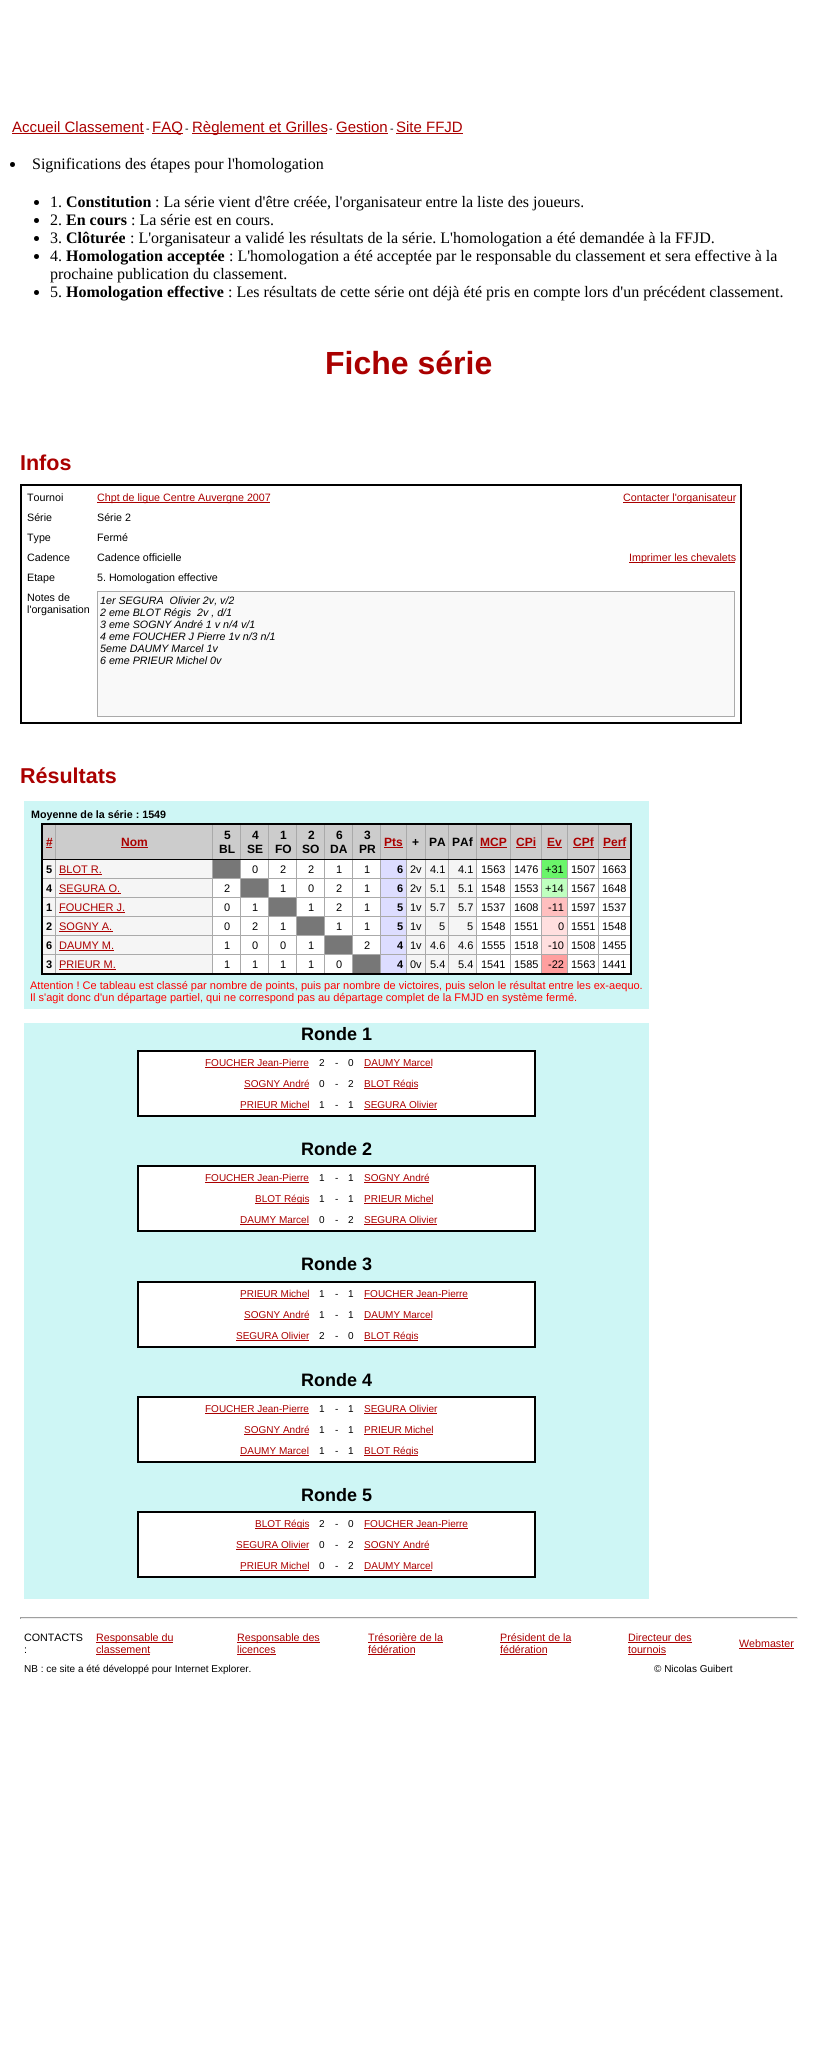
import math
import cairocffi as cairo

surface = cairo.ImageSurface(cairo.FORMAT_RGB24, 818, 2066)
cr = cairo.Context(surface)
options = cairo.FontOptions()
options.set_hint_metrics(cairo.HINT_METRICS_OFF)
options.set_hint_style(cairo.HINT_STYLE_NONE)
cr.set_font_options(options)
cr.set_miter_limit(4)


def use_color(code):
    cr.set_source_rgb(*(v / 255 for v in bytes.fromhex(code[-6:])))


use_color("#ffffff")
cr.paint()
cr.select_font_face("Liberation Sans")
cr.set_font_size(15)
use_color("#aa0000")
cr.move_to(12, 132)
cr.show_text("Accueil Classement")
cr.rectangle(12, 133, 132, 1)
cr.fill()
cr.set_font_size(10.7)
use_color("#000000")
cr.move_to(146, 132)
cr.show_text("-")
use_color("#aa0000")
cr.rectangle(152, 133, 31, 1)
cr.fill()
cr.set_font_size(15)
cr.move_to(152, 132)
cr.show_text("FAQ")
cr.set_font_size(10.7)
use_color("#000000")
cr.move_to(185, 132)
cr.show_text("-")
use_color("#aa0000")
cr.rectangle(192, 133, 135, 1)
cr.fill()
cr.set_font_size(15)
cr.move_to(192, 132)
cr.show_text("Règlement et Grilles")
cr.set_font_size(10.7)
use_color("#000000")
cr.move_to(329, 132)
cr.show_text("-")
cr.set_font_size(15)
use_color("#aa0000")
cr.move_to(336, 132)
cr.show_text("Gestion")
cr.rectangle(336, 133, 52, 1)
cr.fill()
cr.set_font_size(10.7)
use_color("#000000")
cr.move_to(390, 132)
cr.show_text("-")
cr.set_font_size(15)
use_color("#aa0000")
cr.move_to(396, 132)
cr.show_text("Site FFJD")
cr.rectangle(396, 133, 67, 1)
cr.fill()
use_color("#000000")
cr.arc(12.5, 164.5, 2.5, 0, 2 * math.pi)
cr.fill()
cr.select_font_face("Liberation Serif")
cr.set_font_size(16)
cr.move_to(32, 169)
cr.show_text("Significations des étapes pour l'homologation")
cr.new_path()
cr.arc(36.5, 202.5, 2.5, 0, 2 * math.pi)
cr.fill()
cr.move_to(50, 207)
cr.show_text("1.")
cr.select_font_face("Liberation Serif", cairo.FONT_SLANT_NORMAL, cairo.FONT_WEIGHT_BOLD)
cr.move_to(66, 207)
cr.show_text("Constitution")
cr.select_font_face("Liberation Serif")
cr.move_to(155, 207)
cr.show_text(": La série vient d'être créée, l'organisateur entre la liste des joueurs.")
cr.new_path()
cr.arc(36.5, 220.5, 2.5, 0, 2 * math.pi)
cr.fill()
cr.move_to(50, 225)
cr.show_text("2.")
cr.select_font_face("Liberation Serif", cairo.FONT_SLANT_NORMAL, cairo.FONT_WEIGHT_BOLD)
cr.move_to(66, 225)
cr.show_text("En cours")
cr.select_font_face("Liberation Serif")
cr.move_to(131, 225)
cr.show_text(": La série est en cours.")
cr.new_path()
cr.arc(36.5, 238.5, 2.5, 0, 2 * math.pi)
cr.fill()
cr.move_to(50, 243)
cr.show_text("3.")
cr.select_font_face("Liberation Serif", cairo.FONT_SLANT_NORMAL, cairo.FONT_WEIGHT_BOLD)
cr.move_to(66, 243)
cr.show_text("Clôturée")
cr.select_font_face("Liberation Serif")
cr.move_to(130, 243)
cr.show_text(": L'organisateur a validé les résultats de la série. L'homologation a été demandée à la FFJD.")
cr.new_path()
cr.arc(36.5, 256.5, 2.5, 0, 2 * math.pi)
cr.fill()
cr.move_to(50, 261)
cr.show_text("4.")
cr.select_font_face("Liberation Serif", cairo.FONT_SLANT_NORMAL, cairo.FONT_WEIGHT_BOLD)
cr.move_to(66, 261)
cr.show_text("Homologation acceptée")
cr.select_font_face("Liberation Serif")
cr.move_to(229, 261)
cr.show_text(": L'homologation a été acceptée par le responsable du classement et sera effective à la")
cr.move_to(50, 279)
cr.show_text("prochaine publication du classement.")
cr.new_path()
cr.arc(36.5, 292.5, 2.5, 0, 2 * math.pi)
cr.fill()
cr.move_to(50, 297)
cr.show_text("5.")
cr.select_font_face("Liberation Serif", cairo.FONT_SLANT_NORMAL, cairo.FONT_WEIGHT_BOLD)
cr.move_to(66, 297)
cr.show_text("Homologation effective")
cr.select_font_face("Liberation Serif")
cr.move_to(228, 297)
cr.show_text(": Les résultats de cette série ont déjà été pris en compte lors d'un précédent classement.")
cr.select_font_face("Liberation Sans", cairo.FONT_SLANT_NORMAL, cairo.FONT_WEIGHT_BOLD)
cr.set_font_size(32)
use_color("#aa0000")
cr.move_to(325, 374)
cr.show_text("Fiche série")
cr.set_font_size(21.5)
cr.move_to(20, 470)
cr.show_text("Infos")
use_color("#000000")
cr.rectangle(20, 484, 722, 2)
cr.fill()
cr.rectangle(740, 484, 2, 240)
cr.fill()
cr.rectangle(20, 722, 722, 2)
cr.fill()
cr.rectangle(20, 484, 2, 240)
cr.fill()
cr.select_font_face("Liberation Sans")
cr.set_font_size(10.7)
cr.move_to(27, 501)
cr.show_text("Tournoi")
use_color("#aa0000")
cr.rectangle(97, 502, 173, 1)
cr.fill()
cr.move_to(97, 501)
cr.show_text("Chpt de ligue Centre Auvergne 2007")
cr.rectangle(623, 502, 112, 1)
cr.fill()
cr.move_to(623, 501)
cr.show_text("Contacter l'organisateur")
use_color("#000000")
cr.move_to(27, 521)
cr.show_text("Série")
cr.move_to(97, 521)
cr.show_text("Série 2")
cr.move_to(27, 541)
cr.show_text("Type")
cr.move_to(97, 541)
cr.show_text("Fermé")
cr.move_to(27, 561)
cr.show_text("Cadence")
cr.move_to(97, 561)
cr.show_text("Cadence officielle")
use_color("#aa0000")
cr.rectangle(629, 562, 106, 1)
cr.fill()
cr.move_to(629, 561)
cr.show_text("Imprimer les chevalets")
use_color("#000000")
cr.move_to(27, 581)
cr.show_text("Etape")
cr.move_to(97, 581)
cr.show_text("5. Homologation effective")
cr.move_to(27, 601)
cr.show_text("Notes de")
cr.move_to(27, 613)
cr.show_text("l'organisation")
use_color("#f9f9f9")
cr.rectangle(97.5, 591.5, 637, 125)
cr.fill_preserve()
use_color("#aaaaaa")
cr.set_line_width(1)
cr.stroke()
cr.select_font_face("Liberation Sans", cairo.FONT_SLANT_ITALIC)
use_color("#000000")
cr.move_to(100, 604)
cr.show_text("1er SEGURA  Olivier 2v, v/2")
cr.move_to(100, 616)
cr.show_text("2 eme BLOT Régis  2v , d/1")
cr.move_to(100, 628)
cr.show_text("3 eme SOGNY André 1 v n/4 v/1")
cr.move_to(100, 640)
cr.show_text("4 eme FOUCHER J Pierre 1v n/3 n/1")
cr.move_to(100, 652)
cr.show_text("5eme DAUMY Marcel 1v")
cr.move_to(100, 664)
cr.show_text("6 eme PRIEUR Michel 0v")
cr.select_font_face("Liberation Sans", cairo.FONT_SLANT_NORMAL, cairo.FONT_WEIGHT_BOLD)
cr.set_font_size(21.5)
use_color("#aa0000")
cr.move_to(20, 783)
cr.show_text("Résultats")
use_color("#cef6f5")
cr.rectangle(24, 801, 625, 208)
cr.fill()
cr.set_font_size(10.7)
use_color("#000000")
cr.move_to(31, 818)
cr.show_text("Moyenne de la série : 1549")
use_color("#f5f5f5")
cr.rectangle(43, 860, 433, 113)
cr.fill()
use_color("#aaaaaa")
cr.rectangle(598, 878, 33, 1)
cr.fill()
cr.rectangle(598, 897, 33, 1)
cr.fill()
cr.rectangle(598, 916, 33, 1)
cr.fill()
cr.rectangle(598, 935, 33, 1)
cr.fill()
cr.rectangle(598, 954, 33, 1)
cr.fill()
cr.rectangle(598, 954, 1, 21)
cr.fill()
cr.rectangle(567, 954, 32, 1)
cr.fill()
cr.rectangle(598, 935, 1, 20)
cr.fill()
cr.rectangle(567, 935, 32, 1)
cr.fill()
cr.rectangle(598, 916, 1, 20)
cr.fill()
cr.rectangle(567, 916, 32, 1)
cr.fill()
cr.rectangle(598, 897, 1, 20)
cr.fill()
cr.rectangle(567, 897, 32, 1)
cr.fill()
cr.rectangle(598, 878, 1, 20)
cr.fill()
cr.rectangle(567, 878, 32, 1)
cr.fill()
cr.rectangle(598, 859, 1, 20)
cr.fill()
use_color("#000000")
cr.rectangle(598, 859, 33, 1)
cr.fill()
use_color("#aaaaaa")
cr.rectangle(598, 824, 1, 36)
cr.fill()
cr.rectangle(567, 954, 1, 21)
cr.fill()
cr.rectangle(541, 954, 27, 1)
cr.fill()
cr.rectangle(567, 935, 1, 20)
cr.fill()
cr.rectangle(541, 935, 27, 1)
cr.fill()
cr.rectangle(567, 916, 1, 20)
cr.fill()
cr.rectangle(541, 916, 27, 1)
cr.fill()
cr.rectangle(567, 897, 1, 20)
cr.fill()
cr.rectangle(541, 897, 27, 1)
cr.fill()
cr.rectangle(567, 878, 1, 20)
cr.fill()
cr.rectangle(541, 878, 27, 1)
cr.fill()
cr.rectangle(567, 859, 1, 20)
cr.fill()
use_color("#000000")
cr.rectangle(567, 859, 32, 1)
cr.fill()
use_color("#aaaaaa")
cr.rectangle(567, 824, 1, 36)
cr.fill()
cr.rectangle(541, 954, 1, 21)
cr.fill()
cr.rectangle(510, 954, 32, 1)
cr.fill()
cr.rectangle(541, 935, 1, 20)
cr.fill()
cr.rectangle(510, 935, 32, 1)
cr.fill()
cr.rectangle(541, 916, 1, 20)
cr.fill()
cr.rectangle(510, 916, 32, 1)
cr.fill()
cr.rectangle(541, 897, 1, 20)
cr.fill()
cr.rectangle(510, 897, 32, 1)
cr.fill()
cr.rectangle(541, 878, 1, 20)
cr.fill()
cr.rectangle(510, 878, 32, 1)
cr.fill()
cr.rectangle(541, 859, 1, 20)
cr.fill()
use_color("#000000")
cr.rectangle(541, 859, 27, 1)
cr.fill()
use_color("#aaaaaa")
cr.rectangle(541, 824, 1, 36)
cr.fill()
cr.rectangle(510, 954, 1, 21)
cr.fill()
cr.rectangle(476, 954, 35, 1)
cr.fill()
cr.rectangle(510, 935, 1, 20)
cr.fill()
cr.rectangle(476, 935, 35, 1)
cr.fill()
cr.rectangle(510, 916, 1, 20)
cr.fill()
cr.rectangle(476, 916, 35, 1)
cr.fill()
cr.rectangle(510, 897, 1, 20)
cr.fill()
cr.rectangle(476, 897, 35, 1)
cr.fill()
cr.rectangle(510, 878, 1, 20)
cr.fill()
cr.rectangle(476, 878, 35, 1)
cr.fill()
cr.rectangle(510, 859, 1, 20)
cr.fill()
use_color("#000000")
cr.rectangle(510, 859, 32, 1)
cr.fill()
use_color("#aaaaaa")
cr.rectangle(510, 824, 1, 36)
cr.fill()
cr.rectangle(476, 954, 1, 21)
cr.fill()
cr.rectangle(448, 954, 29, 1)
cr.fill()
cr.rectangle(476, 935, 1, 20)
cr.fill()
cr.rectangle(448, 935, 29, 1)
cr.fill()
cr.rectangle(476, 916, 1, 20)
cr.fill()
cr.rectangle(448, 916, 29, 1)
cr.fill()
cr.rectangle(476, 897, 1, 20)
cr.fill()
cr.rectangle(448, 897, 29, 1)
cr.fill()
cr.rectangle(476, 878, 1, 20)
cr.fill()
cr.rectangle(448, 878, 29, 1)
cr.fill()
cr.rectangle(476, 859, 1, 20)
cr.fill()
use_color("#000000")
cr.rectangle(476, 859, 35, 1)
cr.fill()
use_color("#aaaaaa")
cr.rectangle(476, 824, 1, 36)
cr.fill()
cr.rectangle(448, 954, 1, 21)
cr.fill()
cr.rectangle(425, 954, 24, 1)
cr.fill()
cr.rectangle(448, 935, 1, 20)
cr.fill()
cr.rectangle(425, 935, 24, 1)
cr.fill()
cr.rectangle(448, 916, 1, 20)
cr.fill()
cr.rectangle(425, 916, 24, 1)
cr.fill()
cr.rectangle(448, 897, 1, 20)
cr.fill()
cr.rectangle(425, 897, 24, 1)
cr.fill()
cr.rectangle(448, 878, 1, 20)
cr.fill()
cr.rectangle(425, 878, 24, 1)
cr.fill()
cr.rectangle(448, 859, 1, 20)
cr.fill()
use_color("#000000")
cr.rectangle(448, 859, 29, 1)
cr.fill()
use_color("#aaaaaa")
cr.rectangle(448, 824, 1, 36)
cr.fill()
cr.rectangle(425, 954, 1, 21)
cr.fill()
cr.rectangle(406, 954, 20, 1)
cr.fill()
cr.rectangle(425, 935, 1, 20)
cr.fill()
cr.rectangle(406, 935, 20, 1)
cr.fill()
cr.rectangle(425, 916, 1, 20)
cr.fill()
cr.rectangle(406, 916, 20, 1)
cr.fill()
cr.rectangle(425, 897, 1, 20)
cr.fill()
cr.rectangle(406, 897, 20, 1)
cr.fill()
cr.rectangle(425, 878, 1, 20)
cr.fill()
cr.rectangle(406, 878, 20, 1)
cr.fill()
cr.rectangle(425, 859, 1, 20)
cr.fill()
use_color("#000000")
cr.rectangle(425, 859, 24, 1)
cr.fill()
use_color("#aaaaaa")
cr.rectangle(425, 824, 1, 36)
cr.fill()
cr.rectangle(406, 954, 1, 21)
cr.fill()
cr.rectangle(380, 954, 27, 1)
cr.fill()
cr.rectangle(406, 935, 1, 20)
cr.fill()
cr.rectangle(380, 935, 27, 1)
cr.fill()
cr.rectangle(406, 916, 1, 20)
cr.fill()
cr.rectangle(380, 916, 27, 1)
cr.fill()
cr.rectangle(406, 897, 1, 20)
cr.fill()
cr.rectangle(380, 897, 27, 1)
cr.fill()
cr.rectangle(406, 878, 1, 20)
cr.fill()
cr.rectangle(380, 878, 27, 1)
cr.fill()
cr.rectangle(406, 859, 1, 20)
cr.fill()
use_color("#000000")
cr.rectangle(406, 859, 20, 1)
cr.fill()
use_color("#aaaaaa")
cr.rectangle(406, 824, 1, 36)
cr.fill()
cr.rectangle(380, 954, 1, 21)
cr.fill()
cr.rectangle(352, 954, 29, 1)
cr.fill()
cr.rectangle(380, 935, 1, 20)
cr.fill()
cr.rectangle(352, 935, 29, 1)
cr.fill()
cr.rectangle(380, 916, 1, 20)
cr.fill()
cr.rectangle(352, 916, 29, 1)
cr.fill()
cr.rectangle(380, 897, 1, 20)
cr.fill()
cr.rectangle(352, 897, 29, 1)
cr.fill()
cr.rectangle(380, 878, 1, 20)
cr.fill()
cr.rectangle(352, 878, 29, 1)
cr.fill()
cr.rectangle(380, 859, 1, 20)
cr.fill()
use_color("#000000")
cr.rectangle(380, 859, 27, 1)
cr.fill()
use_color("#aaaaaa")
cr.rectangle(380, 824, 1, 36)
cr.fill()
cr.rectangle(352, 954, 1, 21)
cr.fill()
cr.rectangle(324, 954, 29, 1)
cr.fill()
cr.rectangle(352, 935, 1, 20)
cr.fill()
cr.rectangle(324, 935, 29, 1)
cr.fill()
cr.rectangle(352, 916, 1, 20)
cr.fill()
cr.rectangle(324, 916, 29, 1)
cr.fill()
cr.rectangle(352, 897, 1, 20)
cr.fill()
cr.rectangle(324, 897, 29, 1)
cr.fill()
cr.rectangle(352, 878, 1, 20)
cr.fill()
cr.rectangle(324, 878, 29, 1)
cr.fill()
cr.rectangle(352, 859, 1, 20)
cr.fill()
use_color("#000000")
cr.rectangle(352, 859, 29, 1)
cr.fill()
use_color("#aaaaaa")
cr.rectangle(352, 824, 1, 36)
cr.fill()
cr.rectangle(324, 954, 1, 21)
cr.fill()
cr.rectangle(296, 954, 29, 1)
cr.fill()
cr.rectangle(324, 935, 1, 20)
cr.fill()
cr.rectangle(296, 935, 29, 1)
cr.fill()
cr.rectangle(324, 916, 1, 20)
cr.fill()
cr.rectangle(296, 916, 29, 1)
cr.fill()
cr.rectangle(324, 897, 1, 20)
cr.fill()
cr.rectangle(296, 897, 29, 1)
cr.fill()
cr.rectangle(324, 878, 1, 20)
cr.fill()
cr.rectangle(296, 878, 29, 1)
cr.fill()
cr.rectangle(324, 859, 1, 20)
cr.fill()
use_color("#000000")
cr.rectangle(324, 859, 29, 1)
cr.fill()
use_color("#aaaaaa")
cr.rectangle(324, 824, 1, 36)
cr.fill()
cr.rectangle(296, 954, 1, 21)
cr.fill()
cr.rectangle(268, 954, 29, 1)
cr.fill()
cr.rectangle(296, 935, 1, 20)
cr.fill()
cr.rectangle(268, 935, 29, 1)
cr.fill()
cr.rectangle(296, 916, 1, 20)
cr.fill()
cr.rectangle(268, 916, 29, 1)
cr.fill()
cr.rectangle(296, 897, 1, 20)
cr.fill()
cr.rectangle(268, 897, 29, 1)
cr.fill()
cr.rectangle(296, 878, 1, 20)
cr.fill()
cr.rectangle(268, 878, 29, 1)
cr.fill()
cr.rectangle(296, 859, 1, 20)
cr.fill()
use_color("#000000")
cr.rectangle(296, 859, 29, 1)
cr.fill()
use_color("#aaaaaa")
cr.rectangle(296, 824, 1, 36)
cr.fill()
cr.rectangle(268, 954, 1, 21)
cr.fill()
cr.rectangle(240, 954, 29, 1)
cr.fill()
cr.rectangle(268, 935, 1, 20)
cr.fill()
cr.rectangle(240, 935, 29, 1)
cr.fill()
cr.rectangle(268, 916, 1, 20)
cr.fill()
cr.rectangle(240, 916, 29, 1)
cr.fill()
cr.rectangle(268, 897, 1, 20)
cr.fill()
cr.rectangle(240, 897, 29, 1)
cr.fill()
cr.rectangle(268, 878, 1, 20)
cr.fill()
cr.rectangle(240, 878, 29, 1)
cr.fill()
cr.rectangle(268, 859, 1, 20)
cr.fill()
use_color("#000000")
cr.rectangle(268, 859, 29, 1)
cr.fill()
use_color("#aaaaaa")
cr.rectangle(268, 824, 1, 36)
cr.fill()
cr.rectangle(240, 954, 1, 21)
cr.fill()
cr.rectangle(212, 954, 29, 1)
cr.fill()
cr.rectangle(240, 935, 1, 20)
cr.fill()
cr.rectangle(212, 935, 29, 1)
cr.fill()
cr.rectangle(240, 916, 1, 20)
cr.fill()
cr.rectangle(212, 916, 29, 1)
cr.fill()
cr.rectangle(240, 897, 1, 20)
cr.fill()
cr.rectangle(212, 897, 29, 1)
cr.fill()
cr.rectangle(240, 878, 1, 20)
cr.fill()
cr.rectangle(212, 878, 29, 1)
cr.fill()
cr.rectangle(240, 859, 1, 20)
cr.fill()
use_color("#000000")
cr.rectangle(240, 859, 29, 1)
cr.fill()
use_color("#aaaaaa")
cr.rectangle(240, 824, 1, 36)
cr.fill()
cr.rectangle(212, 954, 1, 21)
cr.fill()
cr.rectangle(55, 954, 158, 1)
cr.fill()
cr.rectangle(212, 935, 1, 20)
cr.fill()
cr.rectangle(55, 935, 158, 1)
cr.fill()
cr.rectangle(212, 916, 1, 20)
cr.fill()
cr.rectangle(55, 916, 158, 1)
cr.fill()
cr.rectangle(212, 897, 1, 20)
cr.fill()
cr.rectangle(55, 897, 158, 1)
cr.fill()
cr.rectangle(212, 878, 1, 20)
cr.fill()
cr.rectangle(55, 878, 158, 1)
cr.fill()
cr.rectangle(212, 859, 1, 20)
cr.fill()
use_color("#000000")
cr.rectangle(212, 859, 29, 1)
cr.fill()
use_color("#aaaaaa")
cr.rectangle(212, 824, 1, 36)
cr.fill()
cr.rectangle(55, 954, 1, 21)
cr.fill()
cr.rectangle(41, 954, 15, 1)
cr.fill()
cr.rectangle(55, 935, 1, 20)
cr.fill()
cr.rectangle(41, 935, 15, 1)
cr.fill()
cr.rectangle(55, 916, 1, 20)
cr.fill()
cr.rectangle(41, 916, 15, 1)
cr.fill()
cr.rectangle(55, 897, 1, 20)
cr.fill()
cr.rectangle(41, 897, 15, 1)
cr.fill()
cr.rectangle(55, 878, 1, 20)
cr.fill()
cr.rectangle(41, 878, 15, 1)
cr.fill()
cr.rectangle(55, 859, 1, 20)
cr.fill()
use_color("#000000")
cr.rectangle(55, 859, 158, 1)
cr.fill()
use_color("#aaaaaa")
cr.rectangle(55, 824, 1, 36)
cr.fill()
use_color("#000000")
cr.rectangle(41, 823, 591, 2)
cr.fill()
cr.rectangle(630, 823, 2, 152)
cr.fill()
cr.rectangle(41, 973, 591, 2)
cr.fill()
cr.rectangle(41, 859, 15, 1)
cr.fill()
cr.rectangle(41, 823, 2, 152)
cr.fill()
use_color("#cccccc")
cr.rectangle(43, 825, 12, 34)
cr.fill()
cr.set_font_size(12)
use_color("#aa0000")
cr.move_to(46, 846)
cr.show_text("#")
cr.rectangle(46, 847, 6, 1)
cr.fill()
use_color("#cccccc")
cr.rectangle(56, 825, 156, 34)
cr.fill()
use_color("#aa0000")
cr.move_to(121, 846)
cr.show_text("Nom")
cr.rectangle(121, 847, 27, 1)
cr.fill()
use_color("#cccccc")
cr.rectangle(213, 825, 27, 34)
cr.fill()
use_color("#000000")
cr.move_to(224, 839)
cr.show_text("5")
cr.move_to(219, 853)
cr.show_text("BL")
use_color("#cccccc")
cr.rectangle(241, 825, 27, 34)
cr.fill()
use_color("#000000")
cr.move_to(252, 839)
cr.show_text("4")
cr.move_to(247, 853)
cr.show_text("SE")
use_color("#cccccc")
cr.rectangle(269, 825, 27, 34)
cr.fill()
use_color("#000000")
cr.move_to(280, 839)
cr.show_text("1")
cr.move_to(275, 853)
cr.show_text("FO")
use_color("#cccccc")
cr.rectangle(297, 825, 27, 34)
cr.fill()
use_color("#000000")
cr.move_to(308, 839)
cr.show_text("2")
cr.move_to(302, 853)
cr.show_text("SO")
use_color("#cccccc")
cr.rectangle(325, 825, 27, 34)
cr.fill()
use_color("#000000")
cr.move_to(336, 839)
cr.show_text("6")
cr.move_to(330, 853)
cr.show_text("DA")
use_color("#cccccc")
cr.rectangle(353, 825, 27, 34)
cr.fill()
use_color("#000000")
cr.move_to(364, 839)
cr.show_text("3")
cr.move_to(359, 853)
cr.show_text("PR")
use_color("#cccccc")
cr.rectangle(381, 825, 25, 34)
cr.fill()
use_color("#aa0000")
cr.move_to(384, 846)
cr.show_text("Pts")
cr.rectangle(384, 847, 19, 1)
cr.fill()
use_color("#cccccc")
cr.rectangle(407, 825, 18, 34)
cr.fill()
use_color("#000000")
cr.move_to(412, 846)
cr.show_text("+")
use_color("#cccccc")
cr.rectangle(426, 825, 22, 34)
cr.fill()
use_color("#000000")
cr.move_to(429, 846)
cr.show_text("PA")
use_color("#cccccc")
cr.rectangle(449, 825, 27, 34)
cr.fill()
use_color("#000000")
cr.move_to(452, 846)
cr.show_text("PAf")
use_color("#cccccc")
cr.rectangle(477, 825, 33, 34)
cr.fill()
use_color("#aa0000")
cr.move_to(480, 846)
cr.show_text("MCP")
cr.rectangle(480, 847, 27, 1)
cr.fill()
use_color("#cccccc")
cr.rectangle(511, 825, 30, 34)
cr.fill()
use_color("#aa0000")
cr.move_to(516, 846)
cr.show_text("CPi")
cr.rectangle(516, 847, 20, 1)
cr.fill()
use_color("#cccccc")
cr.rectangle(542, 825, 25, 34)
cr.fill()
use_color("#aa0000")
cr.move_to(547, 846)
cr.show_text("Ev")
cr.rectangle(547, 847, 15, 1)
cr.fill()
use_color("#cccccc")
cr.rectangle(568, 825, 30, 34)
cr.fill()
use_color("#aa0000")
cr.move_to(573, 846)
cr.show_text("CPf")
cr.rectangle(573, 847, 21, 1)
cr.fill()
use_color("#cccccc")
cr.rectangle(599, 825, 31, 34)
cr.fill()
use_color("#aa0000")
cr.move_to(603, 846)
cr.show_text("Perf")
cr.rectangle(603, 847, 23, 1)
cr.fill()
cr.set_font_size(11)
use_color("#000000")
cr.move_to(46, 873)
cr.show_text("5")
cr.select_font_face("Liberation Sans")
use_color("#aa0000")
cr.move_to(59, 873)
cr.show_text("BLOT R.")
cr.rectangle(59, 874, 43, 1)
cr.fill()
use_color("#777777")
cr.rectangle(213, 860, 27, 18)
cr.fill()
use_color("#ffffff")
cr.rectangle(241, 860, 27, 18)
cr.fill()
use_color("#000000")
cr.move_to(252, 873)
cr.show_text("0")
use_color("#ffffff")
cr.rectangle(269, 860, 27, 18)
cr.fill()
use_color("#000000")
cr.move_to(280, 873)
cr.show_text("2")
use_color("#ffffff")
cr.rectangle(297, 860, 27, 18)
cr.fill()
use_color("#000000")
cr.move_to(308, 873)
cr.show_text("2")
use_color("#ffffff")
cr.rectangle(325, 860, 27, 18)
cr.fill()
use_color("#000000")
cr.move_to(336, 873)
cr.show_text("1")
use_color("#ffffff")
cr.rectangle(353, 860, 27, 18)
cr.fill()
use_color("#000000")
cr.move_to(364, 873)
cr.show_text("1")
use_color("#ddddff")
cr.rectangle(381, 860, 25, 18)
cr.fill()
cr.select_font_face("Liberation Sans", cairo.FONT_SLANT_NORMAL, cairo.FONT_WEIGHT_BOLD)
use_color("#000000")
cr.move_to(397, 873)
cr.show_text("6")
cr.select_font_face("Liberation Sans")
cr.move_to(410, 873)
cr.show_text("2v")
cr.move_to(430, 873)
cr.show_text("4.1")
cr.move_to(458, 873)
cr.show_text("4.1")
use_color("#ffffff")
cr.rectangle(477, 860, 33, 18)
cr.fill()
use_color("#000000")
cr.move_to(481, 873)
cr.show_text("1563")
use_color("#ffffff")
cr.rectangle(511, 860, 30, 18)
cr.fill()
use_color("#000000")
cr.move_to(514, 873)
cr.show_text("1476")
use_color("#6af56a")
cr.rectangle(542, 860, 25, 18)
cr.fill()
use_color("#000000")
cr.move_to(545, 873)
cr.show_text("+31")
use_color("#ffffff")
cr.rectangle(568, 860, 30, 18)
cr.fill()
use_color("#000000")
cr.move_to(571, 873)
cr.show_text("1507")
use_color("#ffffff")
cr.rectangle(599, 860, 31, 18)
cr.fill()
use_color("#000000")
cr.move_to(602, 873)
cr.show_text("1663")
cr.select_font_face("Liberation Sans", cairo.FONT_SLANT_NORMAL, cairo.FONT_WEIGHT_BOLD)
cr.move_to(46, 892)
cr.show_text("4")
cr.select_font_face("Liberation Sans")
use_color("#aa0000")
cr.move_to(59, 892)
cr.show_text("SEGURA O.")
cr.rectangle(59, 893, 62, 1)
cr.fill()
use_color("#ffffff")
cr.rectangle(213, 879, 27, 18)
cr.fill()
use_color("#000000")
cr.move_to(224, 892)
cr.show_text("2")
use_color("#777777")
cr.rectangle(241, 879, 27, 18)
cr.fill()
use_color("#ffffff")
cr.rectangle(269, 879, 27, 18)
cr.fill()
use_color("#000000")
cr.move_to(280, 892)
cr.show_text("1")
use_color("#ffffff")
cr.rectangle(297, 879, 27, 18)
cr.fill()
use_color("#000000")
cr.move_to(308, 892)
cr.show_text("0")
use_color("#ffffff")
cr.rectangle(325, 879, 27, 18)
cr.fill()
use_color("#000000")
cr.move_to(336, 892)
cr.show_text("2")
use_color("#ffffff")
cr.rectangle(353, 879, 27, 18)
cr.fill()
use_color("#000000")
cr.move_to(364, 892)
cr.show_text("1")
use_color("#ddddff")
cr.rectangle(381, 879, 25, 18)
cr.fill()
cr.select_font_face("Liberation Sans", cairo.FONT_SLANT_NORMAL, cairo.FONT_WEIGHT_BOLD)
use_color("#000000")
cr.move_to(397, 892)
cr.show_text("6")
cr.select_font_face("Liberation Sans")
cr.move_to(410, 892)
cr.show_text("2v")
cr.move_to(430, 892)
cr.show_text("5.1")
cr.move_to(458, 892)
cr.show_text("5.1")
use_color("#ffffff")
cr.rectangle(477, 879, 33, 18)
cr.fill()
use_color("#000000")
cr.move_to(481, 892)
cr.show_text("1548")
use_color("#ffffff")
cr.rectangle(511, 879, 30, 18)
cr.fill()
use_color("#000000")
cr.move_to(514, 892)
cr.show_text("1553")
use_color("#bfffbf")
cr.rectangle(542, 879, 25, 18)
cr.fill()
use_color("#000000")
cr.move_to(545, 892)
cr.show_text("+14")
use_color("#ffffff")
cr.rectangle(568, 879, 30, 18)
cr.fill()
use_color("#000000")
cr.move_to(571, 892)
cr.show_text("1567")
use_color("#ffffff")
cr.rectangle(599, 879, 31, 18)
cr.fill()
use_color("#000000")
cr.move_to(602, 892)
cr.show_text("1648")
cr.select_font_face("Liberation Sans", cairo.FONT_SLANT_NORMAL, cairo.FONT_WEIGHT_BOLD)
cr.move_to(46, 911)
cr.show_text("1")
cr.select_font_face("Liberation Sans")
use_color("#aa0000")
cr.move_to(59, 911)
cr.show_text("FOUCHER J.")
cr.rectangle(59, 912, 66, 1)
cr.fill()
use_color("#ffffff")
cr.rectangle(213, 898, 27, 18)
cr.fill()
use_color("#000000")
cr.move_to(224, 911)
cr.show_text("0")
use_color("#ffffff")
cr.rectangle(241, 898, 27, 18)
cr.fill()
use_color("#000000")
cr.move_to(252, 911)
cr.show_text("1")
use_color("#777777")
cr.rectangle(269, 898, 27, 18)
cr.fill()
use_color("#ffffff")
cr.rectangle(297, 898, 27, 18)
cr.fill()
use_color("#000000")
cr.move_to(308, 911)
cr.show_text("1")
use_color("#ffffff")
cr.rectangle(325, 898, 27, 18)
cr.fill()
use_color("#000000")
cr.move_to(336, 911)
cr.show_text("2")
use_color("#ffffff")
cr.rectangle(353, 898, 27, 18)
cr.fill()
use_color("#000000")
cr.move_to(364, 911)
cr.show_text("1")
use_color("#ddddff")
cr.rectangle(381, 898, 25, 18)
cr.fill()
cr.select_font_face("Liberation Sans", cairo.FONT_SLANT_NORMAL, cairo.FONT_WEIGHT_BOLD)
use_color("#000000")
cr.move_to(397, 911)
cr.show_text("5")
cr.select_font_face("Liberation Sans")
cr.move_to(410, 911)
cr.show_text("1v")
cr.move_to(430, 911)
cr.show_text("5.7")
cr.move_to(458, 911)
cr.show_text("5.7")
use_color("#ffffff")
cr.rectangle(477, 898, 33, 18)
cr.fill()
use_color("#000000")
cr.move_to(481, 911)
cr.show_text("1537")
use_color("#ffffff")
cr.rectangle(511, 898, 30, 18)
cr.fill()
use_color("#000000")
cr.move_to(514, 911)
cr.show_text("1608")
use_color("#ffbfbf")
cr.rectangle(542, 898, 25, 18)
cr.fill()
use_color("#000000")
cr.move_to(548, 911)
cr.show_text("-11")
use_color("#ffffff")
cr.rectangle(568, 898, 30, 18)
cr.fill()
use_color("#000000")
cr.move_to(571, 911)
cr.show_text("1597")
use_color("#ffffff")
cr.rectangle(599, 898, 31, 18)
cr.fill()
use_color("#000000")
cr.move_to(602, 911)
cr.show_text("1537")
cr.select_font_face("Liberation Sans", cairo.FONT_SLANT_NORMAL, cairo.FONT_WEIGHT_BOLD)
cr.move_to(46, 930)
cr.show_text("2")
cr.select_font_face("Liberation Sans")
use_color("#aa0000")
cr.move_to(59, 930)
cr.show_text("SOGNY A.")
cr.rectangle(59, 931, 54, 1)
cr.fill()
use_color("#ffffff")
cr.rectangle(213, 917, 27, 18)
cr.fill()
use_color("#000000")
cr.move_to(224, 930)
cr.show_text("0")
use_color("#ffffff")
cr.rectangle(241, 917, 27, 18)
cr.fill()
use_color("#000000")
cr.move_to(252, 930)
cr.show_text("2")
use_color("#ffffff")
cr.rectangle(269, 917, 27, 18)
cr.fill()
use_color("#000000")
cr.move_to(280, 930)
cr.show_text("1")
use_color("#777777")
cr.rectangle(297, 917, 27, 18)
cr.fill()
use_color("#ffffff")
cr.rectangle(325, 917, 27, 18)
cr.fill()
use_color("#000000")
cr.move_to(336, 930)
cr.show_text("1")
use_color("#ffffff")
cr.rectangle(353, 917, 27, 18)
cr.fill()
use_color("#000000")
cr.move_to(364, 930)
cr.show_text("1")
use_color("#ddddff")
cr.rectangle(381, 917, 25, 18)
cr.fill()
cr.select_font_face("Liberation Sans", cairo.FONT_SLANT_NORMAL, cairo.FONT_WEIGHT_BOLD)
use_color("#000000")
cr.move_to(397, 930)
cr.show_text("5")
cr.select_font_face("Liberation Sans")
cr.move_to(410, 930)
cr.show_text("1v")
cr.move_to(439, 930)
cr.show_text("5")
cr.move_to(467, 930)
cr.show_text("5")
use_color("#ffffff")
cr.rectangle(477, 917, 33, 18)
cr.fill()
use_color("#000000")
cr.move_to(481, 930)
cr.show_text("1548")
use_color("#ffffff")
cr.rectangle(511, 917, 30, 18)
cr.fill()
use_color("#000000")
cr.move_to(514, 930)
cr.show_text("1551")
use_color("#ffdfdf")
cr.rectangle(542, 917, 25, 18)
cr.fill()
use_color("#000000")
cr.move_to(558, 930)
cr.show_text("0")
use_color("#ffffff")
cr.rectangle(568, 917, 30, 18)
cr.fill()
use_color("#000000")
cr.move_to(571, 930)
cr.show_text("1551")
use_color("#ffffff")
cr.rectangle(599, 917, 31, 18)
cr.fill()
use_color("#000000")
cr.move_to(602, 930)
cr.show_text("1548")
cr.select_font_face("Liberation Sans", cairo.FONT_SLANT_NORMAL, cairo.FONT_WEIGHT_BOLD)
cr.move_to(46, 949)
cr.show_text("6")
cr.select_font_face("Liberation Sans")
use_color("#aa0000")
cr.move_to(59, 949)
cr.show_text("DAUMY M.")
cr.rectangle(59, 950, 55, 1)
cr.fill()
use_color("#ffffff")
cr.rectangle(213, 936, 27, 18)
cr.fill()
use_color("#000000")
cr.move_to(224, 949)
cr.show_text("1")
use_color("#ffffff")
cr.rectangle(241, 936, 27, 18)
cr.fill()
use_color("#000000")
cr.move_to(252, 949)
cr.show_text("0")
use_color("#ffffff")
cr.rectangle(269, 936, 27, 18)
cr.fill()
use_color("#000000")
cr.move_to(280, 949)
cr.show_text("0")
use_color("#ffffff")
cr.rectangle(297, 936, 27, 18)
cr.fill()
use_color("#000000")
cr.move_to(308, 949)
cr.show_text("1")
use_color("#777777")
cr.rectangle(325, 936, 27, 18)
cr.fill()
use_color("#ffffff")
cr.rectangle(353, 936, 27, 18)
cr.fill()
use_color("#000000")
cr.move_to(364, 949)
cr.show_text("2")
use_color("#ddddff")
cr.rectangle(381, 936, 25, 18)
cr.fill()
cr.select_font_face("Liberation Sans", cairo.FONT_SLANT_NORMAL, cairo.FONT_WEIGHT_BOLD)
use_color("#000000")
cr.move_to(397, 949)
cr.show_text("4")
cr.select_font_face("Liberation Sans")
cr.move_to(410, 949)
cr.show_text("1v")
cr.move_to(430, 949)
cr.show_text("4.6")
cr.move_to(458, 949)
cr.show_text("4.6")
use_color("#ffffff")
cr.rectangle(477, 936, 33, 18)
cr.fill()
use_color("#000000")
cr.move_to(481, 949)
cr.show_text("1555")
use_color("#ffffff")
cr.rectangle(511, 936, 30, 18)
cr.fill()
use_color("#000000")
cr.move_to(514, 949)
cr.show_text("1518")
use_color("#ffdfdf")
cr.rectangle(542, 936, 25, 18)
cr.fill()
use_color("#000000")
cr.move_to(548, 949)
cr.show_text("-10")
use_color("#ffffff")
cr.rectangle(568, 936, 30, 18)
cr.fill()
use_color("#000000")
cr.move_to(571, 949)
cr.show_text("1508")
use_color("#ffffff")
cr.rectangle(599, 936, 31, 18)
cr.fill()
use_color("#000000")
cr.move_to(602, 949)
cr.show_text("1455")
cr.select_font_face("Liberation Sans", cairo.FONT_SLANT_NORMAL, cairo.FONT_WEIGHT_BOLD)
cr.move_to(46, 968)
cr.show_text("3")
cr.select_font_face("Liberation Sans")
use_color("#aa0000")
cr.move_to(59, 968)
cr.show_text("PRIEUR M.")
cr.rectangle(59, 969, 57, 1)
cr.fill()
use_color("#ffffff")
cr.rectangle(213, 955, 27, 18)
cr.fill()
use_color("#000000")
cr.move_to(224, 968)
cr.show_text("1")
use_color("#ffffff")
cr.rectangle(241, 955, 27, 18)
cr.fill()
use_color("#000000")
cr.move_to(252, 968)
cr.show_text("1")
use_color("#ffffff")
cr.rectangle(269, 955, 27, 18)
cr.fill()
use_color("#000000")
cr.move_to(280, 968)
cr.show_text("1")
use_color("#ffffff")
cr.rectangle(297, 955, 27, 18)
cr.fill()
use_color("#000000")
cr.move_to(308, 968)
cr.show_text("1")
use_color("#ffffff")
cr.rectangle(325, 955, 27, 18)
cr.fill()
use_color("#000000")
cr.move_to(336, 968)
cr.show_text("0")
use_color("#777777")
cr.rectangle(353, 955, 27, 18)
cr.fill()
use_color("#ddddff")
cr.rectangle(381, 955, 25, 18)
cr.fill()
cr.select_font_face("Liberation Sans", cairo.FONT_SLANT_NORMAL, cairo.FONT_WEIGHT_BOLD)
use_color("#000000")
cr.move_to(397, 968)
cr.show_text("4")
cr.select_font_face("Liberation Sans")
cr.move_to(410, 968)
cr.show_text("0v")
cr.move_to(430, 968)
cr.show_text("5.4")
cr.move_to(458, 968)
cr.show_text("5.4")
use_color("#ffffff")
cr.rectangle(477, 955, 33, 18)
cr.fill()
use_color("#000000")
cr.move_to(481, 968)
cr.show_text("1541")
use_color("#ffffff")
cr.rectangle(511, 955, 30, 18)
cr.fill()
use_color("#000000")
cr.move_to(514, 968)
cr.show_text("1585")
use_color("#ff9f9f")
cr.rectangle(542, 955, 25, 18)
cr.fill()
use_color("#000000")
cr.move_to(548, 968)
cr.show_text("-22")
use_color("#ffffff")
cr.rectangle(568, 955, 30, 18)
cr.fill()
use_color("#000000")
cr.move_to(571, 968)
cr.show_text("1563")
use_color("#ffffff")
cr.rectangle(599, 955, 31, 18)
cr.fill()
use_color("#000000")
cr.move_to(602, 968)
cr.show_text("1441")
use_color("#ff0000")
cr.move_to(30, 989)
cr.show_text("Attention ! Ce tableau est classé par nombre de points, puis par nombre de victoires, puis selon le résultat entre les ex-aequo.")
cr.move_to(30, 1001)
cr.show_text("Il s'agit donc d'un départage partiel, qui ne correspond pas au départage complet de la FMJD en système fermé.")
use_color("#cef6f5")
cr.rectangle(24, 1023, 625, 576)
cr.fill()
cr.select_font_face("Liberation Sans", cairo.FONT_SLANT_NORMAL, cairo.FONT_WEIGHT_BOLD)
cr.set_font_size(18)
use_color("#000000")
cr.move_to(301, 1040)
cr.show_text("Ronde 1")
use_color("#ffffff")
cr.rectangle(139, 1052, 395, 63)
cr.fill()
use_color("#000000")
cr.rectangle(137, 1050, 399, 2)
cr.fill()
cr.rectangle(534, 1050, 2, 67)
cr.fill()
cr.rectangle(137, 1115, 399, 2)
cr.fill()
cr.rectangle(137, 1050, 2, 67)
cr.fill()
cr.select_font_face("Liberation Sans")
cr.set_font_size(10)
use_color("#aa0000")
cr.move_to(205, 1066)
cr.show_text("FOUCHER Jean-Pierre")
cr.rectangle(205, 1067, 104, 1)
cr.fill()
use_color("#000000")
cr.move_to(319, 1066)
cr.show_text("2")
cr.move_to(335, 1066)
cr.show_text("-")
cr.move_to(348, 1066)
cr.show_text("0")
use_color("#aa0000")
cr.move_to(364, 1066)
cr.show_text("DAUMY Marcel")
cr.rectangle(364, 1067, 68, 1)
cr.fill()
cr.move_to(244, 1087)
cr.show_text("SOGNY André")
cr.rectangle(244, 1088, 65, 1)
cr.fill()
use_color("#000000")
cr.move_to(319, 1087)
cr.show_text("0")
cr.move_to(335, 1087)
cr.show_text("-")
cr.move_to(348, 1087)
cr.show_text("2")
use_color("#aa0000")
cr.rectangle(364, 1088, 54, 1)
cr.fill()
cr.move_to(364, 1087)
cr.show_text("BLOT Régis")
cr.move_to(240, 1108)
cr.show_text("PRIEUR Michel")
cr.rectangle(240, 1109, 69, 1)
cr.fill()
use_color("#000000")
cr.move_to(319, 1108)
cr.show_text("1")
cr.move_to(335, 1108)
cr.show_text("-")
cr.move_to(348, 1108)
cr.show_text("1")
use_color("#aa0000")
cr.move_to(364, 1108)
cr.show_text("SEGURA Olivier")
cr.rectangle(364, 1109, 73, 1)
cr.fill()
cr.select_font_face("Liberation Sans", cairo.FONT_SLANT_NORMAL, cairo.FONT_WEIGHT_BOLD)
cr.set_font_size(18)
use_color("#000000")
cr.move_to(301, 1155)
cr.show_text("Ronde 2")
use_color("#ffffff")
cr.rectangle(139, 1167, 395, 63)
cr.fill()
use_color("#000000")
cr.rectangle(137, 1165, 399, 2)
cr.fill()
cr.rectangle(534, 1165, 2, 67)
cr.fill()
cr.rectangle(137, 1230, 399, 2)
cr.fill()
cr.rectangle(137, 1165, 2, 67)
cr.fill()
cr.select_font_face("Liberation Sans")
cr.set_font_size(10)
use_color("#aa0000")
cr.move_to(205, 1181)
cr.show_text("FOUCHER Jean-Pierre")
cr.rectangle(205, 1182, 104, 1)
cr.fill()
use_color("#000000")
cr.move_to(319, 1181)
cr.show_text("1")
cr.move_to(335, 1181)
cr.show_text("-")
cr.move_to(348, 1181)
cr.show_text("1")
use_color("#aa0000")
cr.move_to(364, 1181)
cr.show_text("SOGNY André")
cr.rectangle(364, 1182, 65, 1)
cr.fill()
cr.rectangle(255, 1203, 54, 1)
cr.fill()
cr.move_to(255, 1202)
cr.show_text("BLOT Régis")
use_color("#000000")
cr.move_to(319, 1202)
cr.show_text("1")
cr.move_to(335, 1202)
cr.show_text("-")
cr.move_to(348, 1202)
cr.show_text("1")
use_color("#aa0000")
cr.move_to(364, 1202)
cr.show_text("PRIEUR Michel")
cr.rectangle(364, 1203, 69, 1)
cr.fill()
cr.move_to(240, 1223)
cr.show_text("DAUMY Marcel")
cr.rectangle(240, 1224, 69, 1)
cr.fill()
use_color("#000000")
cr.move_to(319, 1223)
cr.show_text("0")
cr.move_to(335, 1223)
cr.show_text("-")
cr.move_to(348, 1223)
cr.show_text("2")
use_color("#aa0000")
cr.move_to(364, 1223)
cr.show_text("SEGURA Olivier")
cr.rectangle(364, 1224, 73, 1)
cr.fill()
cr.select_font_face("Liberation Sans", cairo.FONT_SLANT_NORMAL, cairo.FONT_WEIGHT_BOLD)
cr.set_font_size(18)
use_color("#000000")
cr.move_to(301, 1270)
cr.show_text("Ronde 3")
use_color("#ffffff")
cr.rectangle(139, 1283, 395, 63)
cr.fill()
use_color("#000000")
cr.rectangle(137, 1281, 399, 2)
cr.fill()
cr.rectangle(534, 1281, 2, 67)
cr.fill()
cr.rectangle(137, 1346, 399, 2)
cr.fill()
cr.rectangle(137, 1281, 2, 67)
cr.fill()
cr.select_font_face("Liberation Sans")
cr.set_font_size(10)
use_color("#aa0000")
cr.move_to(240, 1297)
cr.show_text("PRIEUR Michel")
cr.rectangle(240, 1298, 69, 1)
cr.fill()
use_color("#000000")
cr.move_to(319, 1297)
cr.show_text("1")
cr.move_to(335, 1297)
cr.show_text("-")
cr.move_to(348, 1297)
cr.show_text("1")
use_color("#aa0000")
cr.move_to(364, 1297)
cr.show_text("FOUCHER Jean-Pierre")
cr.rectangle(364, 1298, 104, 1)
cr.fill()
cr.move_to(244, 1318)
cr.show_text("SOGNY André")
cr.rectangle(244, 1319, 65, 1)
cr.fill()
use_color("#000000")
cr.move_to(319, 1318)
cr.show_text("1")
cr.move_to(335, 1318)
cr.show_text("-")
cr.move_to(348, 1318)
cr.show_text("1")
use_color("#aa0000")
cr.move_to(364, 1318)
cr.show_text("DAUMY Marcel")
cr.rectangle(364, 1319, 68, 1)
cr.fill()
cr.move_to(236, 1339)
cr.show_text("SEGURA Olivier")
cr.rectangle(236, 1340, 73, 1)
cr.fill()
use_color("#000000")
cr.move_to(319, 1339)
cr.show_text("2")
cr.move_to(335, 1339)
cr.show_text("-")
cr.move_to(348, 1339)
cr.show_text("0")
use_color("#aa0000")
cr.rectangle(364, 1340, 54, 1)
cr.fill()
cr.move_to(364, 1339)
cr.show_text("BLOT Régis")
cr.select_font_face("Liberation Sans", cairo.FONT_SLANT_NORMAL, cairo.FONT_WEIGHT_BOLD)
cr.set_font_size(18)
use_color("#000000")
cr.move_to(301, 1386)
cr.show_text("Ronde 4")
use_color("#ffffff")
cr.rectangle(139, 1398, 395, 63)
cr.fill()
use_color("#000000")
cr.rectangle(137, 1396, 399, 2)
cr.fill()
cr.rectangle(534, 1396, 2, 67)
cr.fill()
cr.rectangle(137, 1461, 399, 2)
cr.fill()
cr.rectangle(137, 1396, 2, 67)
cr.fill()
cr.select_font_face("Liberation Sans")
cr.set_font_size(10)
use_color("#aa0000")
cr.move_to(205, 1412)
cr.show_text("FOUCHER Jean-Pierre")
cr.rectangle(205, 1413, 104, 1)
cr.fill()
use_color("#000000")
cr.move_to(319, 1412)
cr.show_text("1")
cr.move_to(335, 1412)
cr.show_text("-")
cr.move_to(348, 1412)
cr.show_text("1")
use_color("#aa0000")
cr.move_to(364, 1412)
cr.show_text("SEGURA Olivier")
cr.rectangle(364, 1413, 73, 1)
cr.fill()
cr.move_to(244, 1433)
cr.show_text("SOGNY André")
cr.rectangle(244, 1434, 65, 1)
cr.fill()
use_color("#000000")
cr.move_to(319, 1433)
cr.show_text("1")
cr.move_to(335, 1433)
cr.show_text("-")
cr.move_to(348, 1433)
cr.show_text("1")
use_color("#aa0000")
cr.move_to(364, 1433)
cr.show_text("PRIEUR Michel")
cr.rectangle(364, 1434, 69, 1)
cr.fill()
cr.move_to(240, 1454)
cr.show_text("DAUMY Marcel")
cr.rectangle(240, 1455, 69, 1)
cr.fill()
use_color("#000000")
cr.move_to(319, 1454)
cr.show_text("1")
cr.move_to(335, 1454)
cr.show_text("-")
cr.move_to(348, 1454)
cr.show_text("1")
use_color("#aa0000")
cr.rectangle(364, 1455, 54, 1)
cr.fill()
cr.move_to(364, 1454)
cr.show_text("BLOT Régis")
cr.select_font_face("Liberation Sans", cairo.FONT_SLANT_NORMAL, cairo.FONT_WEIGHT_BOLD)
cr.set_font_size(18)
use_color("#000000")
cr.move_to(301, 1501)
cr.show_text("Ronde 5")
use_color("#ffffff")
cr.rectangle(139, 1513, 395, 63)
cr.fill()
use_color("#000000")
cr.rectangle(137, 1511, 399, 2)
cr.fill()
cr.rectangle(534, 1511, 2, 67)
cr.fill()
cr.rectangle(137, 1576, 399, 2)
cr.fill()
cr.rectangle(137, 1511, 2, 67)
cr.fill()
use_color("#aa0000")
cr.rectangle(255, 1528, 54, 1)
cr.fill()
cr.select_font_face("Liberation Sans")
cr.set_font_size(10)
cr.move_to(255, 1527)
cr.show_text("BLOT Régis")
use_color("#000000")
cr.move_to(319, 1527)
cr.show_text("2")
cr.move_to(335, 1527)
cr.show_text("-")
cr.move_to(348, 1527)
cr.show_text("0")
use_color("#aa0000")
cr.move_to(364, 1527)
cr.show_text("FOUCHER Jean-Pierre")
cr.rectangle(364, 1528, 104, 1)
cr.fill()
cr.move_to(236, 1548)
cr.show_text("SEGURA Olivier")
cr.rectangle(236, 1549, 73, 1)
cr.fill()
use_color("#000000")
cr.move_to(319, 1548)
cr.show_text("0")
cr.move_to(335, 1548)
cr.show_text("-")
cr.move_to(348, 1548)
cr.show_text("2")
use_color("#aa0000")
cr.move_to(364, 1548)
cr.show_text("SOGNY André")
cr.rectangle(364, 1549, 65, 1)
cr.fill()
cr.move_to(240, 1569)
cr.show_text("PRIEUR Michel")
cr.rectangle(240, 1570, 69, 1)
cr.fill()
use_color("#000000")
cr.move_to(319, 1569)
cr.show_text("0")
cr.move_to(335, 1569)
cr.show_text("-")
cr.move_to(348, 1569)
cr.show_text("2")
use_color("#aa0000")
cr.move_to(364, 1569)
cr.show_text("DAUMY Marcel")
cr.rectangle(364, 1570, 68, 1)
cr.fill()
use_color("#9f9f9f")
cr.rectangle(20, 1617, 778, 1)
cr.fill()
use_color("#eeeeee")
cr.rectangle(797, 1617, 1, 2)
cr.fill()
cr.rectangle(20, 1618, 778, 1)
cr.fill()
use_color("#9f9f9f")
cr.rectangle(20, 1617, 1, 2)
cr.fill()
cr.set_font_size(10.7)
use_color("#000000")
cr.move_to(24, 1641)
cr.show_text("CONTACTS")
cr.move_to(24, 1653)
cr.show_text(":")
use_color("#aa0000")
cr.rectangle(96, 1642, 77, 1)
cr.fill()
cr.move_to(96, 1641)
cr.show_text("Responsable du")
cr.move_to(96, 1653)
cr.show_text("classement")
cr.rectangle(96, 1654, 54, 1)
cr.fill()
cr.rectangle(237, 1642, 83, 1)
cr.fill()
cr.move_to(237, 1641)
cr.show_text("Responsable des")
cr.move_to(237, 1653)
cr.show_text("licences")
cr.rectangle(237, 1654, 39, 1)
cr.fill()
cr.move_to(368, 1641)
cr.show_text("Trésorière de la")
cr.rectangle(368, 1642, 75, 1)
cr.fill()
cr.move_to(368, 1653)
cr.show_text("fédération")
cr.rectangle(368, 1654, 47, 1)
cr.fill()
cr.move_to(500, 1641)
cr.show_text("Président de la")
cr.rectangle(500, 1642, 71, 1)
cr.fill()
cr.move_to(500, 1653)
cr.show_text("fédération")
cr.rectangle(500, 1654, 47, 1)
cr.fill()
cr.move_to(628, 1641)
cr.show_text("Directeur des")
cr.rectangle(628, 1642, 64, 1)
cr.fill()
cr.move_to(628, 1653)
cr.show_text("tournois")
cr.rectangle(628, 1654, 38, 1)
cr.fill()
cr.move_to(739, 1647)
cr.show_text("Webmaster")
cr.rectangle(739, 1648, 55, 1)
cr.fill()
cr.set_font_size(10)
use_color("#000000")
cr.move_to(24, 1672)
cr.show_text("NB : ce site a été développé pour Internet Explorer.")
cr.move_to(654, 1672)
cr.show_text("© Nicolas Guibert")
surface.write_to_png("result.png")
